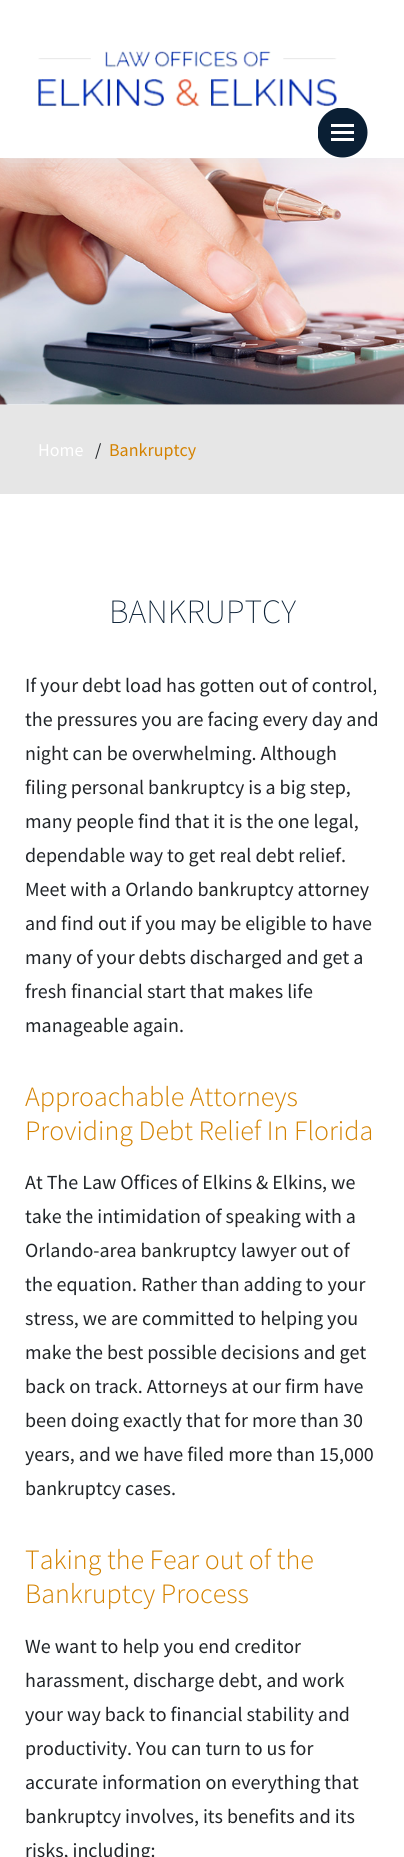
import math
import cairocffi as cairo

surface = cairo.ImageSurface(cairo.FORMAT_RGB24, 404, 1857)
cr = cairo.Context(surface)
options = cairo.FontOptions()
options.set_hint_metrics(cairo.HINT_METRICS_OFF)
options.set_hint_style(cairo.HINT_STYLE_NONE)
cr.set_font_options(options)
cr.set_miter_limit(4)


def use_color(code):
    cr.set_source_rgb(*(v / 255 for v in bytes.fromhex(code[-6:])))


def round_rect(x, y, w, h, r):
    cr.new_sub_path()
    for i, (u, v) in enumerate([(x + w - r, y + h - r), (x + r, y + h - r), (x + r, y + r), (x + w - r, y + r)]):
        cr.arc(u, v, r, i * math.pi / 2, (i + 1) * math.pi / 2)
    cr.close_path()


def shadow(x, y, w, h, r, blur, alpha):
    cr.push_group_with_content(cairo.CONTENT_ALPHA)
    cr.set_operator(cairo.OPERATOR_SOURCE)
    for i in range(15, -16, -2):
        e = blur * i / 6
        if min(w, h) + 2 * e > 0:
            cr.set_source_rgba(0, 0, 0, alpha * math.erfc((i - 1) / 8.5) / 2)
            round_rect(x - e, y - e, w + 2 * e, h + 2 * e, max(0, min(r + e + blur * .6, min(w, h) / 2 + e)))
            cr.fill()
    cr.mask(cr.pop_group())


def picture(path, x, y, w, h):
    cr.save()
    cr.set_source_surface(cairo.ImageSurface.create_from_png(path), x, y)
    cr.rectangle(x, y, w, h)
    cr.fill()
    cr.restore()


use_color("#ffffff")
cr.paint()
picture("img2.png", 0, 158, 404, 247)
use_color("#e9ecef")
shadow(4, 4, 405, 157, 0, 12.5, 1)
use_color("#ffffff")
cr.rectangle(0, 0, 404, 158)
cr.fill()
picture("img1.png", 38, 50, 299, 57)
cr.save()
cr.rectangle(318, 108, 50, 50)
cr.clip()
use_color("#0a1f34")
cr.arc(342.5, 132.5, 25, 0, 2 * math.pi)
cr.fill()
cr.restore()
cr.rectangle(331, 124, 23, 3)
cr.fill()
cr.rectangle(331, 131, 23, 3)
cr.fill()
cr.rectangle(331, 138, 23, 3)
cr.fill()
use_color("#e6e6e6")
cr.rectangle(0, 405, 404, 89)
cr.fill()
cr.select_font_face("Source Sans Pro")
cr.set_font_size(18)
use_color("#ffffff")
cr.move_to(38, 456)
cr.show_text("Home")
use_color("#212529")
cr.move_to(95, 456)
cr.show_text("/")
use_color("#d48200")
cr.move_to(109, 456)
cr.show_text("Bankruptcy")
cr.select_font_face("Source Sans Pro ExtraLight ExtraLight")
cr.set_font_size(34)
use_color("#0a1f34")
cr.move_to(109, 623)
cr.show_text("BANKRUPTCY")
cr.select_font_face("Source Sans Pro")
cr.set_font_size(20)
use_color("#212529")
cr.move_to(25, 692)
cr.show_text("If your debt load has gotten out of control,")
cr.move_to(25, 726)
cr.show_text("the pressures you are facing every day and")
cr.move_to(25, 760)
cr.show_text("night can be overwhelming. Although")
cr.move_to(25, 794)
cr.show_text("filing personal bankruptcy is a big step,")
cr.move_to(25, 828)
cr.show_text("many people find that it is the one legal,")
cr.move_to(25, 862)
cr.show_text("dependable way to get real debt relief.")
cr.move_to(25, 896)
cr.show_text("Meet with a Orlando bankruptcy attorney")
cr.move_to(25, 930)
cr.show_text("and find out if you may be eligible to have")
cr.move_to(25, 964)
cr.show_text("many of your debts discharged and get a")
cr.move_to(25, 998)
cr.show_text("fresh financial start that makes life")
cr.move_to(25, 1032)
cr.show_text("manageable again.")
cr.select_font_face("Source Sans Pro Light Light")
cr.set_font_size(28)
use_color("#d48200")
cr.move_to(25, 1106)
cr.show_text("Approachable Attorneys")
cr.move_to(25, 1140)
cr.show_text("Providing Debt Relief In Florida")
cr.select_font_face("Source Sans Pro")
cr.set_font_size(20)
use_color("#212529")
cr.move_to(25, 1189)
cr.show_text("At The Law Offices of Elkins & Elkins, we")
cr.move_to(25, 1223)
cr.show_text("take the intimidation of speaking with a")
cr.move_to(25, 1257)
cr.show_text("Orlando-area bankruptcy lawyer out of")
cr.move_to(25, 1291)
cr.show_text("the equation. Rather than adding to your")
cr.move_to(25, 1325)
cr.show_text("stress, we are committed to helping you")
cr.move_to(25, 1359)
cr.show_text("make the best possible decisions and get")
cr.move_to(25, 1393)
cr.show_text("back on track. Attorneys at our firm have")
cr.move_to(25, 1427)
cr.show_text("been doing exactly that for more than 30")
cr.move_to(25, 1461)
cr.show_text("years, and we have filed more than 15,000")
cr.move_to(25, 1495)
cr.show_text("bankruptcy cases.")
cr.select_font_face("Source Sans Pro Light Light")
cr.set_font_size(28)
use_color("#d48200")
cr.move_to(25, 1569)
cr.show_text("Taking the Fear out of the")
cr.move_to(25, 1603)
cr.show_text("Bankruptcy Process")
cr.select_font_face("Source Sans Pro")
cr.set_font_size(20)
use_color("#212529")
cr.move_to(25, 1653)
cr.show_text("We want to help you end creditor")
cr.move_to(25, 1687)
cr.show_text("harassment, discharge debt, and work")
cr.move_to(25, 1721)
cr.show_text("your way back to financial stability and")
cr.move_to(25, 1755)
cr.show_text("productivity. You can turn to us for")
cr.move_to(25, 1789)
cr.show_text("accurate information on everything that")
cr.move_to(25, 1823)
cr.show_text("bankruptcy involves, its benefits and its")
cr.move_to(25, 1857)
cr.show_text("risks, including:")
surface.write_to_png("result.png")
